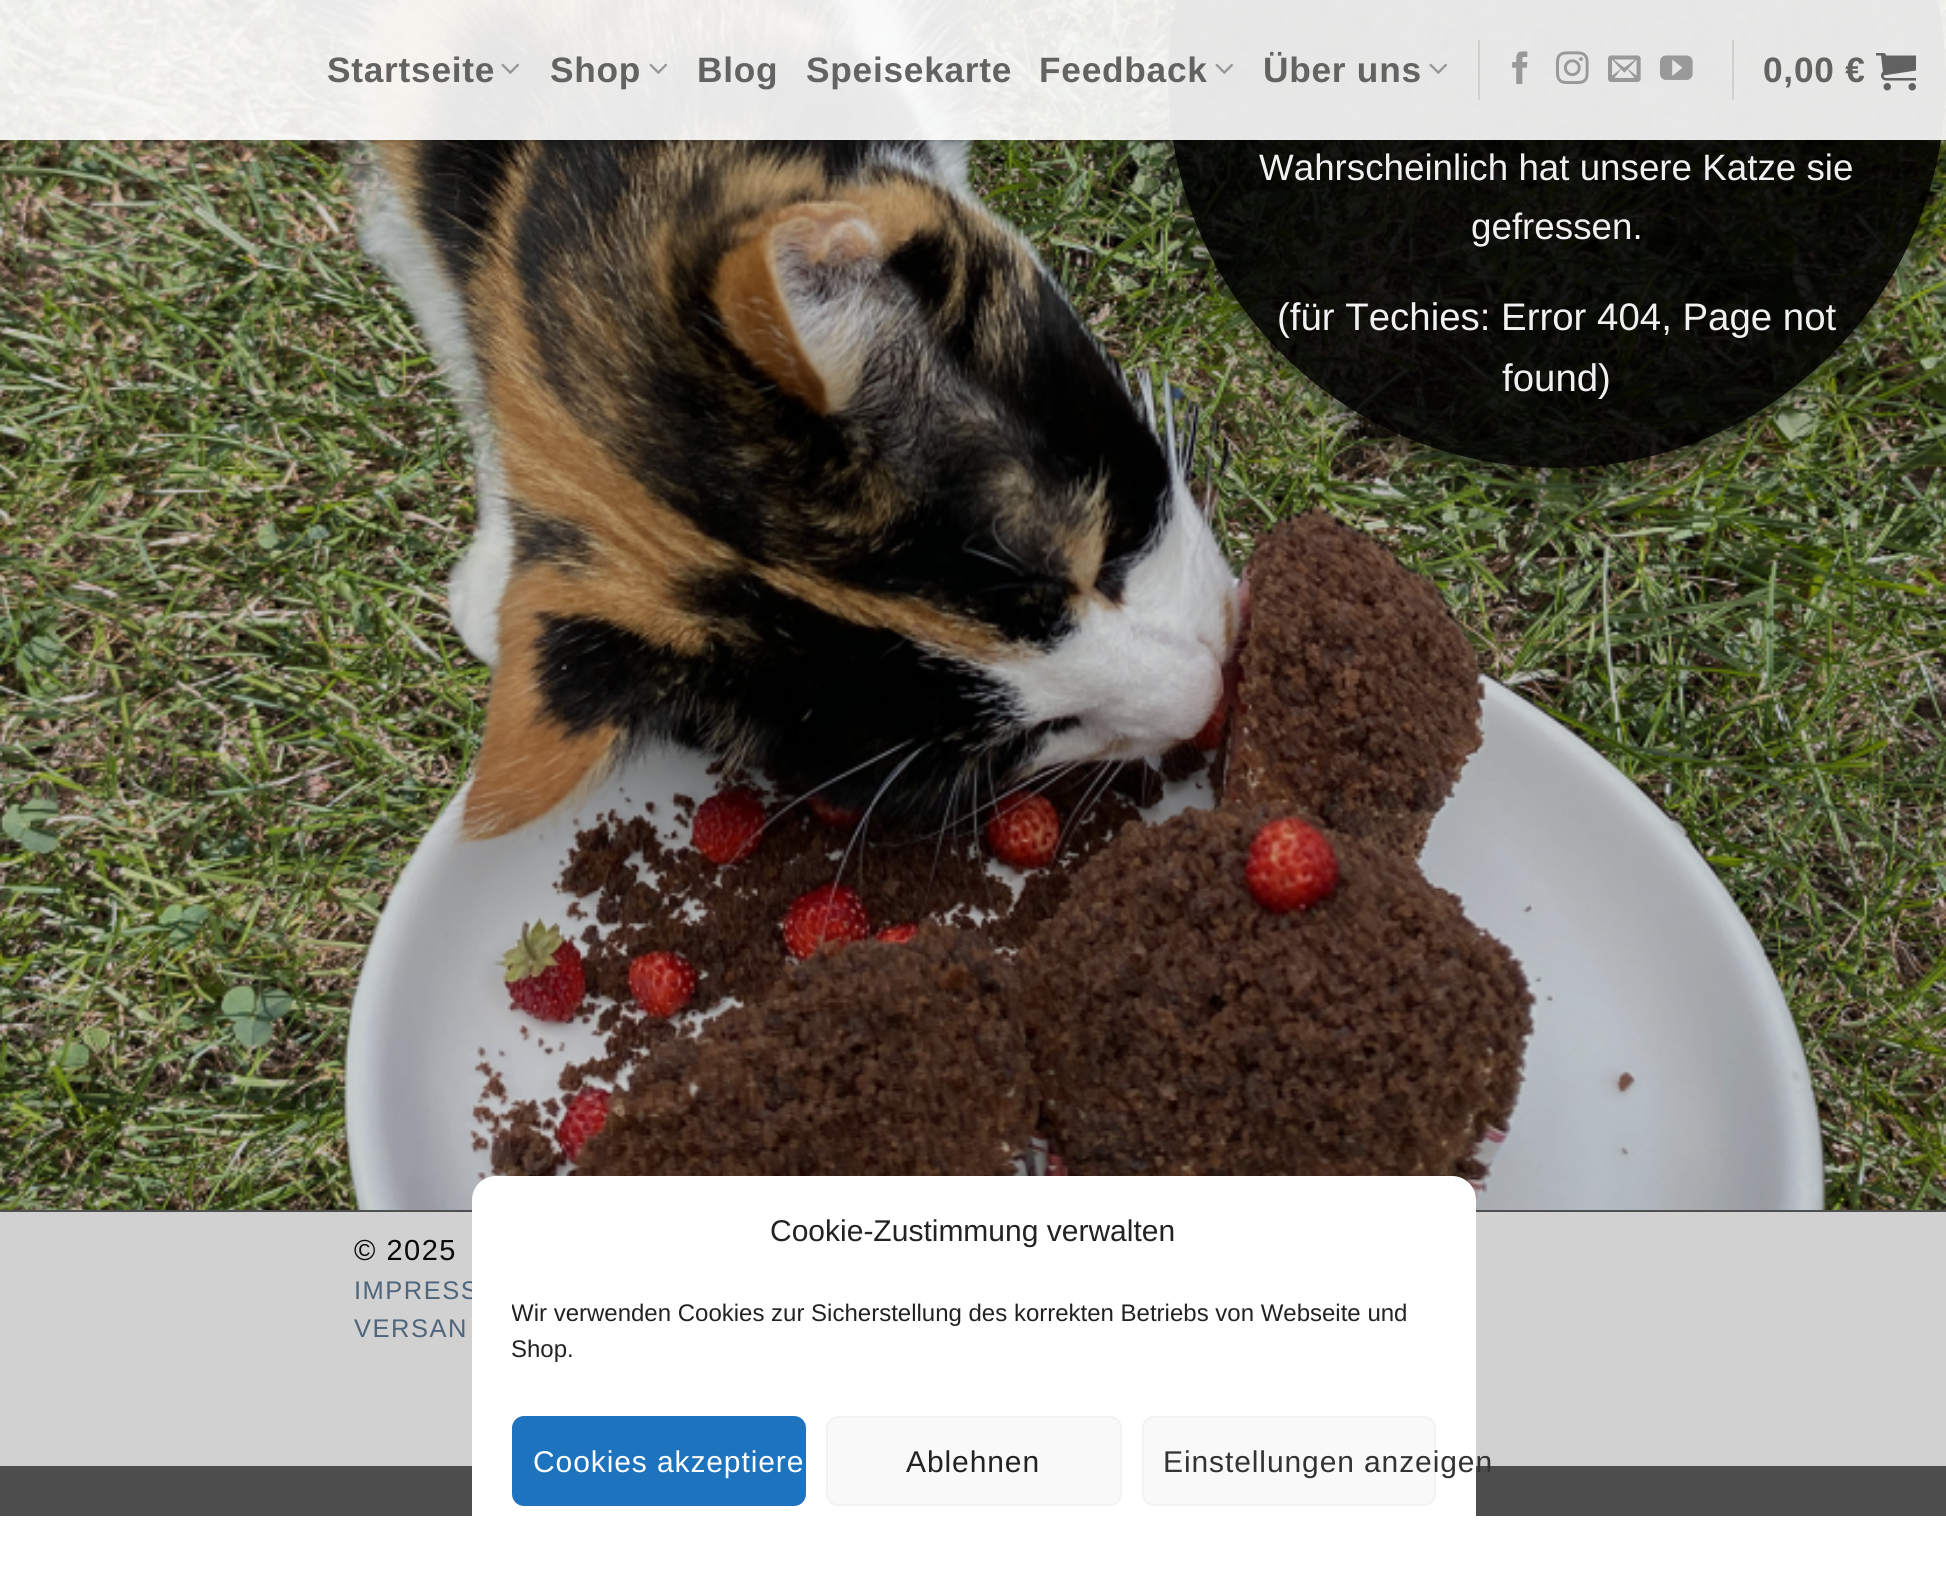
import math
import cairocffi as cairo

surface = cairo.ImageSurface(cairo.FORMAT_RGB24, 1946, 1576)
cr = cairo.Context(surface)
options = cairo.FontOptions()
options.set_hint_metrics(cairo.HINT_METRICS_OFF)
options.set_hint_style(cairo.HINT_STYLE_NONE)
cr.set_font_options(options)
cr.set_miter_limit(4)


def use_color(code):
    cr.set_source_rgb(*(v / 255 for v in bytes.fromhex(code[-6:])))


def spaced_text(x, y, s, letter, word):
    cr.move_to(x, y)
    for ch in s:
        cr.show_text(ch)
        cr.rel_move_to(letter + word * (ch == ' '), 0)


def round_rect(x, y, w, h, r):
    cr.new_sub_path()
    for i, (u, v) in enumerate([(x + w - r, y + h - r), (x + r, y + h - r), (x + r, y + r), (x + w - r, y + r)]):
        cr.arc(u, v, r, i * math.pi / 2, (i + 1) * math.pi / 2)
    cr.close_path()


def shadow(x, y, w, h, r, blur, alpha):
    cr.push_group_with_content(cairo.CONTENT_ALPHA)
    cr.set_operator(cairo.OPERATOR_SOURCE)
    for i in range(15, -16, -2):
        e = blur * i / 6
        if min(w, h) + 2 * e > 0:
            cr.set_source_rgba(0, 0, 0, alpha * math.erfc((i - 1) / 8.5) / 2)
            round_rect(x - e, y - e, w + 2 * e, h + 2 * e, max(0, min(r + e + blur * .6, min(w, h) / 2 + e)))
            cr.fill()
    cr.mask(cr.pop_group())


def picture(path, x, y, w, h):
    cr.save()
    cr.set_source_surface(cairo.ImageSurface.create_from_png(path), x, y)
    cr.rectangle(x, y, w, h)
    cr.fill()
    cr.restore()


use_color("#ffffff")
cr.paint()
use_color("#364d6a")
cr.rectangle(0, 0, 1946, 1210)
cr.fill()
picture("img10.png", 0, 0, 1946, 1210)
cr.save()
cr.set_fill_rule(cairo.FILL_RULE_EVEN_ODD)
cr.new_path()
cr.move_to(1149, 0)
cr.line_to(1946, 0)
cr.line_to(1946, 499)
cr.line_to(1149, 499)
cr.close_path()
cr.move_to(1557, -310)
cr.curve_to(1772, -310, 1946, -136, 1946, 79)
cr.curve_to(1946, 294, 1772, 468, 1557, 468)
cr.curve_to(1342, 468, 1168, 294, 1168, 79)
cr.curve_to(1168, -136, 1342, -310, 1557, -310)
cr.close_path()
cr.clip()
use_color("#000000")
shadow(1168, -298, 778, 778, 389, 6, 0.22)
cr.restore()
cr.save()
cr.set_fill_rule(cairo.FILL_RULE_EVEN_ODD)
cr.new_path()
cr.move_to(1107, 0)
cr.line_to(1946, 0)
cr.line_to(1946, 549)
cr.line_to(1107, 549)
cr.close_path()
cr.move_to(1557, -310)
cr.curve_to(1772, -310, 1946, -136, 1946, 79)
cr.curve_to(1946, 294, 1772, 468, 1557, 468)
cr.curve_to(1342, 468, 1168, 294, 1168, 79)
cr.curve_to(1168, -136, 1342, -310, 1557, -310)
cr.close_path()
cr.clip()
use_color("#000000")
shadow(1168, -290, 778, 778, 389, 20, 0.19)
cr.restore()
cr.set_source_rgba(0, 0, 0, 0.86)
cr.arc(1557, 79, 389, 0, 2 * math.pi)
cr.fill()
cr.save()
cr.rectangle(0, 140, 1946, 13)
cr.clip()
use_color("#000000")
shadow(2, 2, 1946, 140, 0, 10, 0.15)
cr.restore()
cr.set_source_rgba(1, 1, 1, 0.9)
cr.rectangle(0, 0, 1946, 140)
cr.fill()
cr.select_font_face("Liberation Sans", cairo.FONT_SLANT_NORMAL, cairo.FONT_WEIGHT_BOLD)
cr.set_font_size(35.25)
use_color("#636362")
spaced_text(327, 82, "Startseite", 0.75, 0)
picture("img1.png", 501, 63, 19, 11)
spaced_text(550, 82, "Shop", 0.75, 0)
picture("img2.png", 649, 63, 19, 11)
spaced_text(697, 82, "Blog", 0.75, 0)
spaced_text(806, 82, "Speisekarte", 0.75, 0)
spaced_text(1039, 82, "Feedback", 0.75, 0)
picture("img3.png", 1215, 63, 19, 11)
spaced_text(1263, 82, "Über uns", 0.75, 0)
picture("img4.png", 1429, 63, 19, 11)
use_color("#cfd0cf")
cr.rectangle(1478, 40, 2, 60)
cr.fill()
picture("img5.png", 1512, 51, 16, 34)
picture("img6.png", 1556, 51, 33, 34)
picture("img7.png", 1608, 55, 33, 27)
picture("img8.png", 1660, 55, 33, 25)
use_color("#d0d0cf")
cr.rectangle(1732, 40, 2, 60)
cr.fill()
use_color("#636362")
spaced_text(1763, 82, "0,00 €", 0.75, 0)
picture("img9.png", 1876, 53, 40, 38)
cr.set_source_rgba(0.039, 0.035, 0.035, 0.1)
cr.rectangle(30, 140, 1143, 2)
cr.fill()
cr.select_font_face("Liberation Sans")
cr.set_font_size(36.75)
use_color("#f1f1f1")
cr.move_to(1259, 180)
cr.show_text("Wahrscheinlich hat unsere Katze sie")
cr.move_to(1471, 239)
cr.show_text("gefressen.")
cr.set_font_size(38.4)
cr.move_to(1277, 330)
cr.show_text("(für Techies: Error 404, Page not")
cr.move_to(1502, 391)
cr.show_text("found)")
use_color("#d1d1d1")
cr.rectangle(0, 1212, 1946, 254)
cr.fill()
use_color("#4f4f4f")
cr.rectangle(0, 1210, 1946, 2)
cr.fill()
cr.set_font_size(29)
use_color("#0a0909")
spaced_text(354, 1260, "© 2025", 1.5, 0)
cr.set_font_size(25.5)
use_color("#4e657b")
spaced_text(354, 1299, "IMPRESS", 1.5, 0)
spaced_text(354, 1337, "VERSAN", 1.5, 0)
use_color("#4d4d4d")
cr.rectangle(0, 1466, 1946, 50)
cr.fill()
use_color("#ffffff")
round_rect(472, 1176, 1004, 400, 24)
cr.fill()
cr.set_font_size(30)
use_color("#222222")
cr.move_to(770, 1241)
cr.show_text("Cookie-Zustimmung verwalten")
cr.save()
cr.rectangle(512, 1294, 924, 82)
cr.clip()
cr.set_font_size(24)
cr.move_to(511, 1321)
cr.show_text("Wir verwenden Cookies zur Sicherstellung des korrekten Betriebs von Webseite und")
cr.restore()
cr.set_font_size(24)
cr.move_to(511, 1357)
cr.show_text("Shop.")
use_color("#1e73be")
round_rect(513, 1417, 292, 88, 11)
cr.fill_preserve()
cr.stroke()
cr.set_font_size(30)
use_color("#ffffff")
spaced_text(533, 1472, "Cookies akzeptiere", 0.9, 0)
use_color("#f9f9f9")
round_rect(827, 1417, 294, 88, 11)
cr.fill_preserve()
use_color("#f2f2f2")
cr.stroke()
use_color("#222222")
spaced_text(906, 1472, "Ablehnen", 0.9, 0)
use_color("#f9f9f9")
round_rect(1143, 1417, 292, 88, 11)
cr.fill_preserve()
use_color("#f2f2f2")
cr.stroke()
use_color("#333333")
spaced_text(1163, 1472, "Einstellungen anzeigen", 0.9, 0)
surface.write_to_png("result.png")
